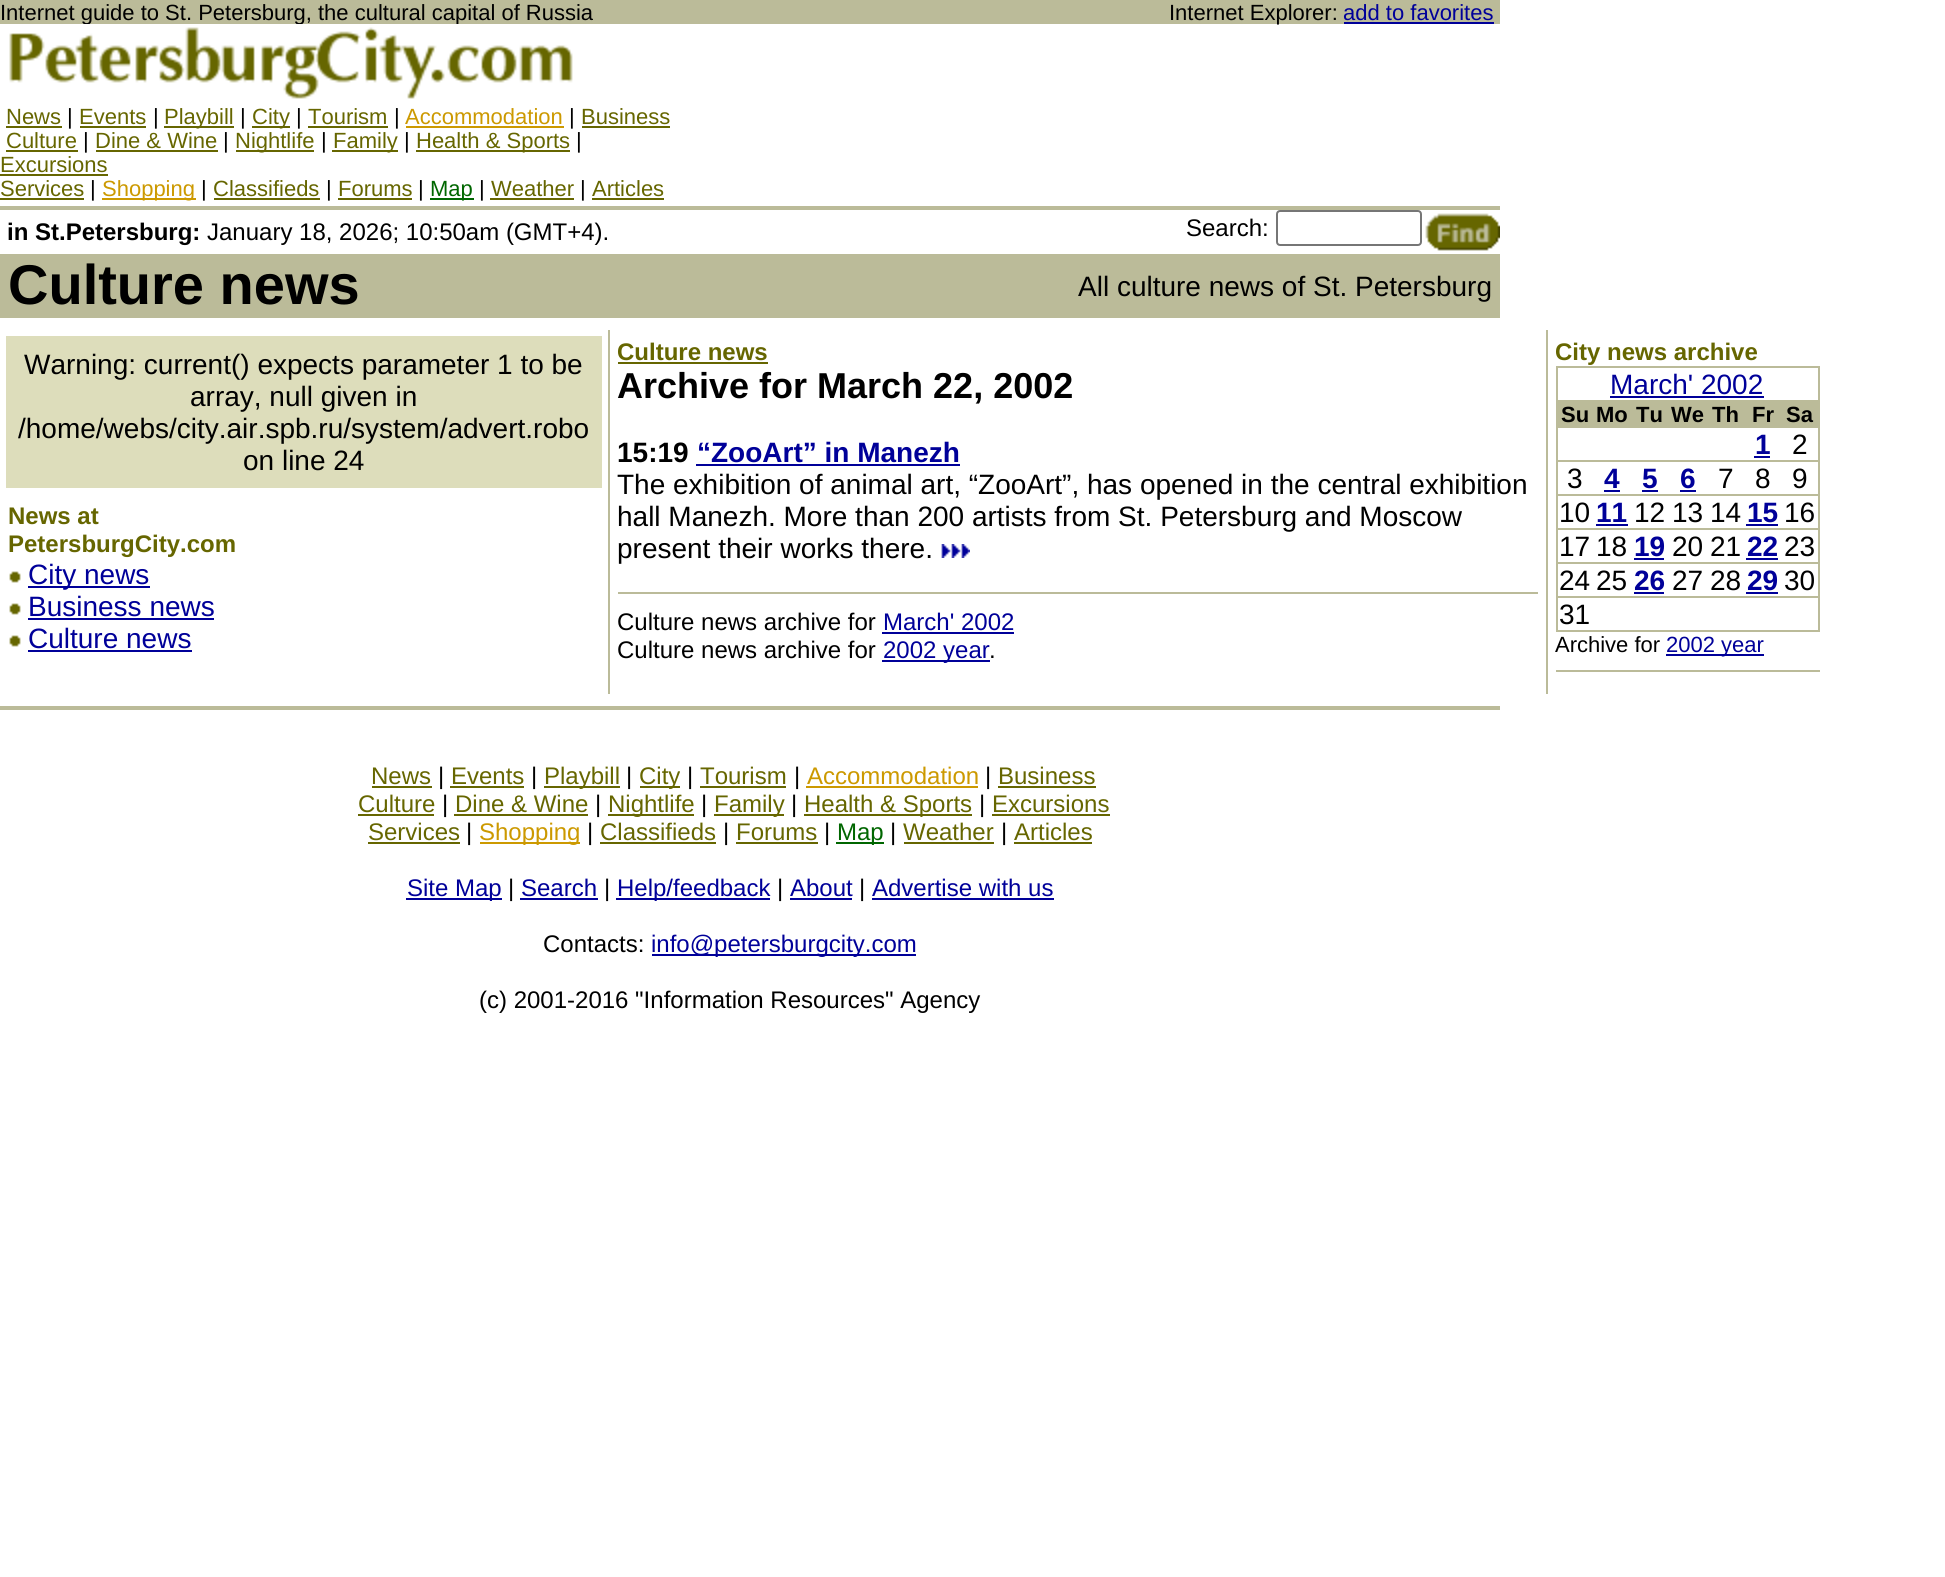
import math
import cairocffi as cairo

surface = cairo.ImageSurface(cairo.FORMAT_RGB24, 1945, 1577)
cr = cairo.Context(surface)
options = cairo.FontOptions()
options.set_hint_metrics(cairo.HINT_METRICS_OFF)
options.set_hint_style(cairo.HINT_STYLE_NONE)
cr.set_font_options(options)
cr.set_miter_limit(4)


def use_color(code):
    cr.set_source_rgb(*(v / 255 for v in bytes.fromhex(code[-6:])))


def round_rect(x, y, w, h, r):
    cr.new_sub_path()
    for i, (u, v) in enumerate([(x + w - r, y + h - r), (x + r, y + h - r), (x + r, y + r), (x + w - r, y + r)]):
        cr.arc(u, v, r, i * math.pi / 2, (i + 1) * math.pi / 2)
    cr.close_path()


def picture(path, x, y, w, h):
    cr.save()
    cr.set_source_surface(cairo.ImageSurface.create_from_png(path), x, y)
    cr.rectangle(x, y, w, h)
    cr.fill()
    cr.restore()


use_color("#ffffff")
cr.paint()
use_color("#bbbb99")
cr.rectangle(0, 0, 1500, 24)
cr.fill()
cr.select_font_face("Liberation Sans")
cr.set_font_size(22)
use_color("#000000")
cr.move_to(0, 20)
cr.show_text("Internet guide to St. Petersburg, the cultural capital of Russia")
cr.move_to(1169, 20)
cr.show_text("Internet Explorer:")
use_color("#000099")
cr.move_to(1343, 20)
cr.show_text("add to favorites")
cr.rectangle(1344, 22, 150, 2)
cr.fill()
picture("img1.png", 9, 24, 564, 75)
use_color("#666600")
cr.move_to(6, 124)
cr.show_text("News")
cr.rectangle(6, 126, 56, 2)
cr.fill()
use_color("#000000")
cr.move_to(67, 124)
cr.show_text("|")
use_color("#666600")
cr.move_to(79, 124)
cr.show_text("Events")
cr.rectangle(80, 126, 66, 2)
cr.fill()
use_color("#000000")
cr.move_to(153, 124)
cr.show_text("|")
use_color("#666600")
cr.rectangle(164, 126, 70, 2)
cr.fill()
cr.move_to(164, 124)
cr.show_text("Playbill")
use_color("#000000")
cr.move_to(240, 124)
cr.show_text("|")
use_color("#666600")
cr.rectangle(252, 126, 38, 2)
cr.fill()
cr.move_to(252, 124)
cr.show_text("City")
use_color("#000000")
cr.move_to(296, 124)
cr.show_text("|")
use_color("#666600")
cr.move_to(308, 124)
cr.show_text("Tourism")
cr.rectangle(308, 126, 80, 2)
cr.fill()
use_color("#000000")
cr.move_to(394, 124)
cr.show_text("|")
use_color("#cc9900")
cr.move_to(405, 124)
cr.show_text("Accommodation")
cr.rectangle(406, 126, 158, 2)
cr.fill()
use_color("#000000")
cr.move_to(569, 124)
cr.show_text("|")
use_color("#666600")
cr.move_to(581, 124)
cr.show_text("Business")
cr.rectangle(582, 126, 88, 2)
cr.fill()
cr.move_to(6, 148)
cr.show_text("Culture")
cr.rectangle(6, 150, 72, 2)
cr.fill()
use_color("#000000")
cr.move_to(83, 148)
cr.show_text("|")
use_color("#666600")
cr.move_to(95, 148)
cr.show_text("Dine & Wine")
cr.rectangle(96, 150, 122, 2)
cr.fill()
use_color("#000000")
cr.move_to(223, 148)
cr.show_text("|")
use_color("#666600")
cr.rectangle(236, 150, 78, 2)
cr.fill()
cr.move_to(235, 148)
cr.show_text("Nightlife")
use_color("#000000")
cr.move_to(321, 148)
cr.show_text("|")
use_color("#666600")
cr.rectangle(332, 150, 66, 2)
cr.fill()
cr.move_to(333, 148)
cr.show_text("Family")
use_color("#000000")
cr.move_to(404, 148)
cr.show_text("|")
use_color("#666600")
cr.rectangle(416, 150, 154, 2)
cr.fill()
cr.move_to(416, 148)
cr.show_text("Health & Sports")
use_color("#000000")
cr.move_to(576, 148)
cr.show_text("|")
use_color("#666600")
cr.move_to(0, 172)
cr.show_text("Excursions")
cr.rectangle(0, 174, 108, 2)
cr.fill()
cr.move_to(0, 196)
cr.show_text("Services")
cr.rectangle(0, 198, 84, 2)
cr.fill()
use_color("#000000")
cr.move_to(90, 196)
cr.show_text("|")
use_color("#cc9900")
cr.rectangle(102, 198, 94, 2)
cr.fill()
cr.move_to(102, 196)
cr.show_text("Shopping")
use_color("#000000")
cr.move_to(201, 196)
cr.show_text("|")
use_color("#666600")
cr.move_to(213, 196)
cr.show_text("Classifieds")
cr.rectangle(214, 198, 106, 2)
cr.fill()
use_color("#000000")
cr.move_to(326, 196)
cr.show_text("|")
use_color("#666600")
cr.move_to(338, 196)
cr.show_text("Forums")
cr.rectangle(338, 198, 74, 2)
cr.fill()
use_color("#000000")
cr.move_to(418, 196)
cr.show_text("|")
use_color("#006600")
cr.rectangle(430, 198, 44, 2)
cr.fill()
cr.move_to(430, 196)
cr.show_text("Map")
use_color("#000000")
cr.move_to(479, 196)
cr.show_text("|")
use_color("#666600")
cr.move_to(491, 196)
cr.show_text("Weather")
cr.rectangle(490, 198, 84, 2)
cr.fill()
use_color("#000000")
cr.move_to(580, 196)
cr.show_text("|")
use_color("#666600")
cr.move_to(592, 196)
cr.show_text("Articles")
cr.rectangle(592, 198, 72, 2)
cr.fill()
use_color("#bbbb99")
cr.rectangle(0, 206, 1500, 4)
cr.fill()
cr.select_font_face("Liberation Sans", cairo.FONT_SLANT_NORMAL, cairo.FONT_WEIGHT_BOLD)
cr.set_font_size(24)
use_color("#000000")
cr.move_to(7, 240)
cr.show_text("in St.Petersburg:")
cr.select_font_face("Liberation Sans")
cr.move_to(207, 240)
cr.show_text("January 18, 2026; 10:50am (GMT+4).")
cr.move_to(1186, 236)
cr.show_text("Search:")
round_rect(1277, 211, 144, 34, 3)
use_color("#767676")
cr.stroke()
picture("img2.png", 1425, 213, 75, 38)
use_color("#bbbb99")
cr.rectangle(0, 254, 1500, 64)
cr.fill()
cr.select_font_face("Liberation Sans", cairo.FONT_SLANT_NORMAL, cairo.FONT_WEIGHT_BOLD)
cr.set_font_size(56)
use_color("#000000")
cr.move_to(8, 304)
cr.show_text("Culture news")
cr.select_font_face("Liberation Sans")
cr.set_font_size(28)
cr.move_to(1078, 296)
cr.show_text("All culture news of St. Petersburg")
use_color("#ddddbb")
cr.rectangle(6, 336, 596, 152)
cr.fill()
use_color("#000000")
cr.move_to(24, 374)
cr.show_text("Warning: current() expects parameter 1 to be")
cr.move_to(190, 406)
cr.show_text("array, null given in")
cr.move_to(18, 438)
cr.show_text("/home/webs/city.air.spb.ru/system/advert.robo")
cr.move_to(243, 470)
cr.show_text("on line 24")
cr.select_font_face("Liberation Sans", cairo.FONT_SLANT_NORMAL, cairo.FONT_WEIGHT_BOLD)
cr.set_font_size(24)
use_color("#666600")
cr.move_to(8, 524)
cr.show_text("News at")
cr.move_to(8, 552)
cr.show_text("PetersburgCity.com")
picture("img3.png", 9, 571, 12, 12)
use_color("#000099")
cr.rectangle(28, 586, 122, 2)
cr.fill()
cr.select_font_face("Liberation Sans")
cr.set_font_size(28)
cr.move_to(28, 584)
cr.show_text("City news")
picture("img3.png", 9, 603, 12, 12)
cr.move_to(28, 616)
cr.show_text("Business news")
cr.rectangle(28, 618, 186, 2)
cr.fill()
picture("img3.png", 9, 635, 12, 12)
cr.move_to(28, 648)
cr.show_text("Culture news")
cr.rectangle(28, 650, 164, 2)
cr.fill()
use_color("#bbbb99")
cr.rectangle(608, 330, 2, 364)
cr.fill()
cr.select_font_face("Liberation Sans", cairo.FONT_SLANT_NORMAL, cairo.FONT_WEIGHT_BOLD)
cr.set_font_size(24)
use_color("#666600")
cr.move_to(617, 360)
cr.show_text("Culture news")
cr.rectangle(618, 362, 150, 2)
cr.fill()
cr.set_font_size(36)
use_color("#000000")
cr.move_to(617, 398)
cr.show_text("Archive for March 22, 2002")
cr.set_font_size(28)
cr.move_to(617, 462)
cr.show_text("15:19")
use_color("#000099")
cr.move_to(697, 462)
cr.show_text("“ZooArt” in Manezh")
cr.rectangle(696, 464, 264, 2)
cr.fill()
cr.select_font_face("Liberation Sans")
use_color("#000000")
cr.move_to(617, 494)
cr.show_text("The exhibition of animal art, “ZooArt”, has opened in the central exhibition")
cr.move_to(617, 526)
cr.show_text("hall Manezh. More than 200 artists from St. Petersburg and Moscow")
cr.move_to(617, 558)
cr.show_text("present their works there.")
picture("img4.png", 941, 544, 29, 14)
use_color("#bbbb99")
cr.rectangle(618, 592, 920, 2)
cr.fill()
cr.set_font_size(24)
use_color("#000000")
cr.move_to(617, 630)
cr.show_text("Culture news archive for")
use_color("#000099")
cr.move_to(883, 630)
cr.show_text("March' 2002")
cr.rectangle(882, 632, 132, 2)
cr.fill()
use_color("#000000")
cr.move_to(617, 658)
cr.show_text("Culture news archive for")
use_color("#000099")
cr.rectangle(882, 660, 108, 2)
cr.fill()
cr.move_to(883, 658)
cr.show_text("2002 year")
use_color("#000000")
cr.move_to(989, 658)
cr.show_text(".")
use_color("#bbbb99")
cr.rectangle(1546, 330, 2, 364)
cr.fill()
cr.select_font_face("Liberation Sans", cairo.FONT_SLANT_NORMAL, cairo.FONT_WEIGHT_BOLD)
use_color("#666600")
cr.move_to(1555, 360)
cr.show_text("City news archive")
use_color("#bbbb99")
cr.rectangle(1556, 366, 264, 266)
cr.fill()
use_color("#ffffff")
cr.rectangle(1558, 368, 260, 32)
cr.fill()
cr.select_font_face("Liberation Sans")
cr.set_font_size(28)
use_color("#000099")
cr.move_to(1610, 394)
cr.show_text("March' 2002")
cr.rectangle(1610, 396, 154, 2)
cr.fill()
cr.select_font_face("Liberation Sans", cairo.FONT_SLANT_NORMAL, cairo.FONT_WEIGHT_BOLD)
cr.set_font_size(22)
use_color("#000000")
cr.move_to(1561, 422)
cr.show_text("Su")
cr.move_to(1596, 422)
cr.show_text("Mo")
cr.move_to(1636, 422)
cr.show_text("Tu")
cr.move_to(1671, 422)
cr.show_text("We")
cr.move_to(1712, 422)
cr.show_text("Th")
cr.move_to(1752, 422)
cr.show_text("Fr")
cr.move_to(1786, 422)
cr.show_text("Sa")
use_color("#ffffff")
cr.rectangle(1558, 428, 260, 32)
cr.fill()
cr.set_font_size(28)
use_color("#000099")
cr.move_to(1755, 454)
cr.show_text("1")
cr.rectangle(1754, 456, 16, 2)
cr.fill()
cr.select_font_face("Liberation Sans")
use_color("#000000")
cr.move_to(1792, 454)
cr.show_text("2")
use_color("#ffffff")
cr.rectangle(1558, 462, 260, 32)
cr.fill()
use_color("#000000")
cr.move_to(1567, 488)
cr.show_text("3")
cr.select_font_face("Liberation Sans", cairo.FONT_SLANT_NORMAL, cairo.FONT_WEIGHT_BOLD)
use_color("#000099")
cr.move_to(1604, 488)
cr.show_text("4")
cr.rectangle(1604, 490, 16, 2)
cr.fill()
cr.move_to(1642, 488)
cr.show_text("5")
cr.rectangle(1642, 490, 16, 2)
cr.fill()
cr.move_to(1680, 488)
cr.show_text("6")
cr.rectangle(1680, 490, 16, 2)
cr.fill()
cr.select_font_face("Liberation Sans")
use_color("#000000")
cr.move_to(1718, 488)
cr.show_text("7")
cr.move_to(1755, 488)
cr.show_text("8")
cr.move_to(1792, 488)
cr.show_text("9")
use_color("#ffffff")
cr.rectangle(1558, 496, 260, 32)
cr.fill()
use_color("#000000")
cr.move_to(1559, 522)
cr.show_text("10")
cr.select_font_face("Liberation Sans", cairo.FONT_SLANT_NORMAL, cairo.FONT_WEIGHT_BOLD)
use_color("#000099")
cr.move_to(1596, 522)
cr.show_text("11")
cr.rectangle(1596, 524, 32, 2)
cr.fill()
cr.select_font_face("Liberation Sans")
use_color("#000000")
cr.move_to(1634, 522)
cr.show_text("12")
cr.move_to(1672, 522)
cr.show_text("13")
cr.move_to(1710, 522)
cr.show_text("14")
cr.select_font_face("Liberation Sans", cairo.FONT_SLANT_NORMAL, cairo.FONT_WEIGHT_BOLD)
use_color("#000099")
cr.move_to(1747, 522)
cr.show_text("15")
cr.rectangle(1746, 524, 32, 2)
cr.fill()
cr.select_font_face("Liberation Sans")
use_color("#000000")
cr.move_to(1784, 522)
cr.show_text("16")
use_color("#ffffff")
cr.rectangle(1558, 530, 260, 32)
cr.fill()
use_color("#000000")
cr.move_to(1559, 556)
cr.show_text("17")
cr.move_to(1596, 556)
cr.show_text("18")
cr.select_font_face("Liberation Sans", cairo.FONT_SLANT_NORMAL, cairo.FONT_WEIGHT_BOLD)
use_color("#000099")
cr.move_to(1634, 556)
cr.show_text("19")
cr.rectangle(1634, 558, 30, 2)
cr.fill()
cr.select_font_face("Liberation Sans")
use_color("#000000")
cr.move_to(1672, 556)
cr.show_text("20")
cr.move_to(1710, 556)
cr.show_text("21")
cr.select_font_face("Liberation Sans", cairo.FONT_SLANT_NORMAL, cairo.FONT_WEIGHT_BOLD)
use_color("#000099")
cr.move_to(1747, 556)
cr.show_text("22")
cr.rectangle(1746, 558, 32, 2)
cr.fill()
cr.select_font_face("Liberation Sans")
use_color("#000000")
cr.move_to(1784, 556)
cr.show_text("23")
use_color("#ffffff")
cr.rectangle(1558, 564, 260, 32)
cr.fill()
use_color("#000000")
cr.move_to(1559, 590)
cr.show_text("24")
cr.move_to(1596, 590)
cr.show_text("25")
cr.select_font_face("Liberation Sans", cairo.FONT_SLANT_NORMAL, cairo.FONT_WEIGHT_BOLD)
use_color("#000099")
cr.move_to(1634, 590)
cr.show_text("26")
cr.rectangle(1634, 592, 30, 2)
cr.fill()
cr.select_font_face("Liberation Sans")
use_color("#000000")
cr.move_to(1672, 590)
cr.show_text("27")
cr.move_to(1710, 590)
cr.show_text("28")
cr.select_font_face("Liberation Sans", cairo.FONT_SLANT_NORMAL, cairo.FONT_WEIGHT_BOLD)
use_color("#000099")
cr.move_to(1747, 590)
cr.show_text("29")
cr.rectangle(1746, 592, 32, 2)
cr.fill()
cr.select_font_face("Liberation Sans")
use_color("#000000")
cr.move_to(1784, 590)
cr.show_text("30")
use_color("#ffffff")
cr.rectangle(1558, 598, 260, 32)
cr.fill()
use_color("#000000")
cr.move_to(1559, 624)
cr.show_text("31")
cr.set_font_size(22)
cr.move_to(1555, 652)
cr.show_text("Archive for")
use_color("#000099")
cr.rectangle(1666, 654, 98, 2)
cr.fill()
cr.move_to(1666, 652)
cr.show_text("2002 year")
use_color("#bbbb99")
cr.rectangle(1556, 670, 264, 2)
cr.fill()
cr.rectangle(0, 706, 1500, 4)
cr.fill()
cr.set_font_size(24)
use_color("#666600")
cr.move_to(371, 784)
cr.show_text("News")
cr.rectangle(372, 786, 60, 2)
cr.fill()
use_color("#000000")
cr.move_to(438, 784)
cr.show_text("|")
use_color("#666600")
cr.move_to(451, 784)
cr.show_text("Events")
cr.rectangle(450, 786, 74, 2)
cr.fill()
use_color("#000000")
cr.move_to(531, 784)
cr.show_text("|")
use_color("#666600")
cr.rectangle(544, 786, 76, 2)
cr.fill()
cr.move_to(544, 784)
cr.show_text("Playbill")
use_color("#000000")
cr.move_to(626, 784)
cr.show_text("|")
use_color("#666600")
cr.rectangle(640, 786, 40, 2)
cr.fill()
cr.move_to(639, 784)
cr.show_text("City")
use_color("#000000")
cr.move_to(687, 784)
cr.show_text("|")
use_color("#666600")
cr.move_to(700, 784)
cr.show_text("Tourism")
cr.rectangle(700, 786, 86, 2)
cr.fill()
use_color("#000000")
cr.move_to(794, 784)
cr.show_text("|")
use_color("#cc9900")
cr.move_to(807, 784)
cr.show_text("Accommodation")
cr.rectangle(806, 786, 172, 2)
cr.fill()
use_color("#000000")
cr.move_to(985, 784)
cr.show_text("|")
use_color("#666600")
cr.move_to(998, 784)
cr.show_text("Business")
cr.rectangle(998, 786, 98, 2)
cr.fill()
cr.move_to(358, 812)
cr.show_text("Culture")
cr.rectangle(358, 814, 76, 2)
cr.fill()
use_color("#000000")
cr.move_to(442, 812)
cr.show_text("|")
use_color("#666600")
cr.move_to(455, 812)
cr.show_text("Dine & Wine")
cr.rectangle(454, 814, 134, 2)
cr.fill()
use_color("#000000")
cr.move_to(595, 812)
cr.show_text("|")
use_color("#666600")
cr.rectangle(608, 814, 86, 2)
cr.fill()
cr.move_to(608, 812)
cr.show_text("Nightlife")
use_color("#000000")
cr.move_to(701, 812)
cr.show_text("|")
use_color("#666600")
cr.rectangle(714, 814, 70, 2)
cr.fill()
cr.move_to(714, 812)
cr.show_text("Family")
use_color("#000000")
cr.move_to(791, 812)
cr.show_text("|")
use_color("#666600")
cr.rectangle(804, 814, 168, 2)
cr.fill()
cr.move_to(804, 812)
cr.show_text("Health & Sports")
use_color("#000000")
cr.move_to(979, 812)
cr.show_text("|")
use_color("#666600")
cr.move_to(992, 812)
cr.show_text("Excursions")
cr.rectangle(992, 814, 118, 2)
cr.fill()
cr.move_to(368, 840)
cr.show_text("Services")
cr.rectangle(368, 842, 92, 2)
cr.fill()
use_color("#000000")
cr.move_to(466, 840)
cr.show_text("|")
use_color("#cc9900")
cr.rectangle(480, 842, 100, 2)
cr.fill()
cr.move_to(479, 840)
cr.show_text("Shopping")
use_color("#000000")
cr.move_to(587, 840)
cr.show_text("|")
use_color("#666600")
cr.move_to(600, 840)
cr.show_text("Classifieds")
cr.rectangle(600, 842, 116, 2)
cr.fill()
use_color("#000000")
cr.move_to(723, 840)
cr.show_text("|")
use_color("#666600")
cr.move_to(736, 840)
cr.show_text("Forums")
cr.rectangle(736, 842, 82, 2)
cr.fill()
use_color("#000000")
cr.move_to(824, 840)
cr.show_text("|")
use_color("#006600")
cr.rectangle(836, 842, 48, 2)
cr.fill()
cr.move_to(837, 840)
cr.show_text("Map")
use_color("#000000")
cr.move_to(890, 840)
cr.show_text("|")
use_color("#666600")
cr.move_to(903, 840)
cr.show_text("Weather")
cr.rectangle(904, 842, 90, 2)
cr.fill()
use_color("#000000")
cr.move_to(1001, 840)
cr.show_text("|")
use_color("#666600")
cr.move_to(1014, 840)
cr.show_text("Articles")
cr.rectangle(1014, 842, 78, 2)
cr.fill()
use_color("#000099")
cr.rectangle(406, 898, 96, 2)
cr.fill()
cr.move_to(407, 896)
cr.show_text("Site Map")
use_color("#000000")
cr.move_to(508, 896)
cr.show_text("|")
use_color("#000099")
cr.move_to(521, 896)
cr.show_text("Search")
cr.rectangle(520, 898, 78, 2)
cr.fill()
use_color("#000000")
cr.move_to(604, 896)
cr.show_text("|")
use_color("#000099")
cr.rectangle(616, 898, 154, 2)
cr.fill()
cr.move_to(617, 896)
cr.show_text("Help/feedback")
use_color("#000000")
cr.move_to(777, 896)
cr.show_text("|")
use_color("#000099")
cr.move_to(790, 896)
cr.show_text("About")
cr.rectangle(790, 898, 62, 2)
cr.fill()
use_color("#000000")
cr.move_to(859, 896)
cr.show_text("|")
use_color("#000099")
cr.move_to(872, 896)
cr.show_text("Advertise with us")
cr.rectangle(872, 898, 182, 2)
cr.fill()
use_color("#000000")
cr.move_to(543, 952)
cr.show_text("Contacts:")
use_color("#000099")
cr.rectangle(652, 954, 264, 2)
cr.fill()
cr.move_to(651, 952)
cr.show_text("info@petersburgcity.com")
use_color("#000000")
cr.move_to(479, 1008)
cr.show_text("(c) 2001-2016 \"Information Resources\" Agency")
surface.write_to_png("result.png")
